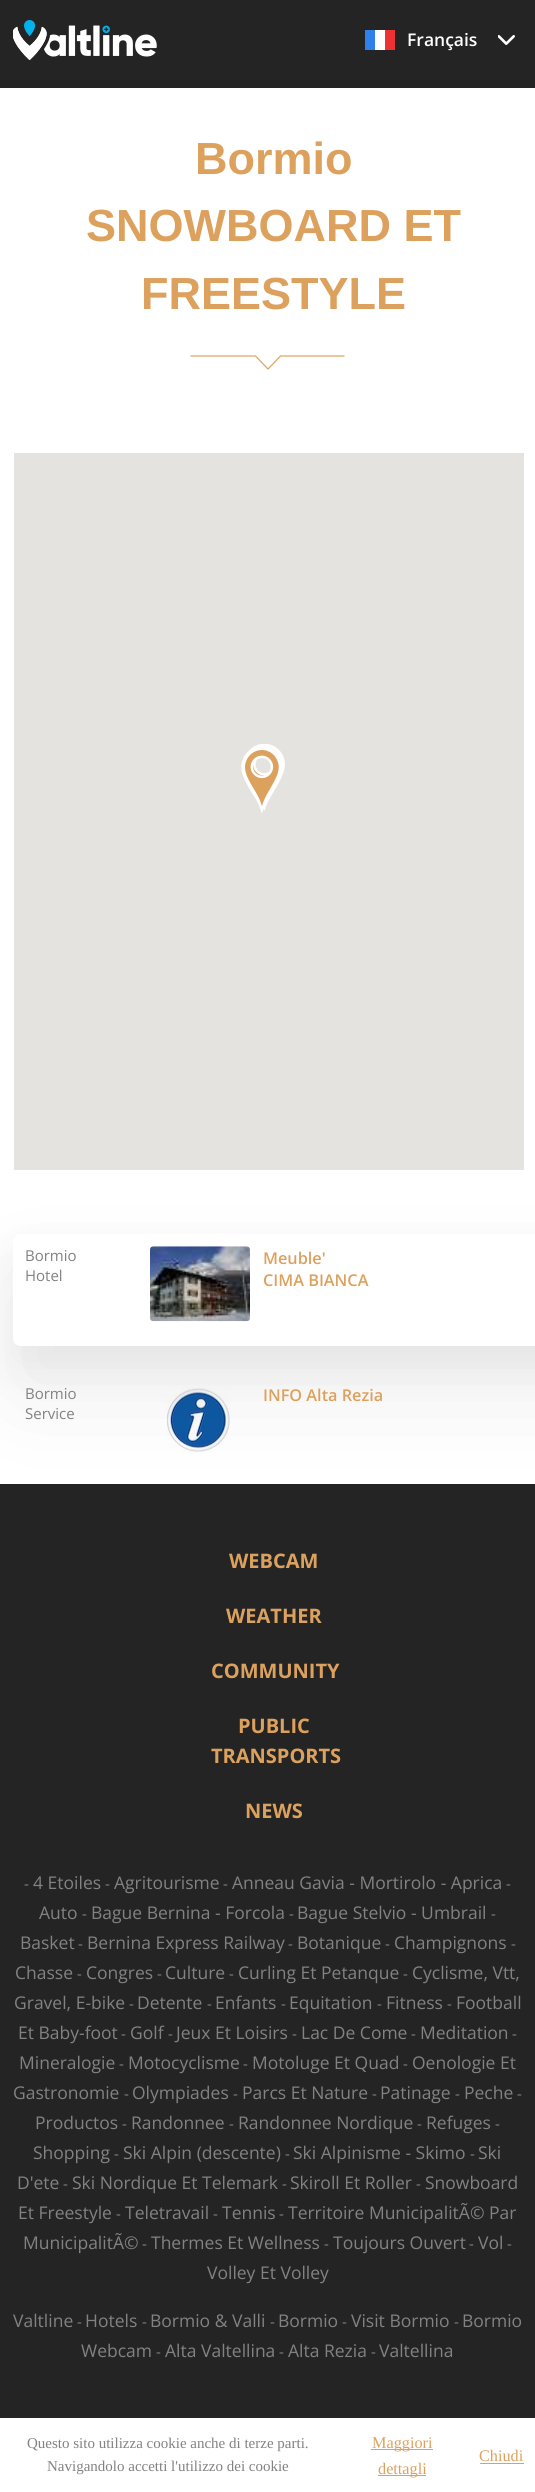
import math
import cairocffi as cairo

surface = cairo.ImageSurface(cairo.FORMAT_RGB24, 535, 2492)
cr = cairo.Context(surface)
options = cairo.FontOptions()
options.set_hint_metrics(cairo.HINT_METRICS_OFF)
options.set_hint_style(cairo.HINT_STYLE_NONE)
cr.set_font_options(options)
cr.set_miter_limit(4)


def use_color(code):
    cr.set_source_rgb(*(v / 255 for v in bytes.fromhex(code[-6:])))


def round_rect(x, y, w, h, r):
    cr.new_sub_path()
    for i, (u, v) in enumerate([(x + w - r, y + h - r), (x + r, y + h - r), (x + r, y + r), (x + w - r, y + r)]):
        cr.arc(u, v, r, i * math.pi / 2, (i + 1) * math.pi / 2)
    cr.close_path()


def shadow(x, y, w, h, r, blur, alpha):
    cr.push_group_with_content(cairo.CONTENT_ALPHA)
    cr.set_operator(cairo.OPERATOR_SOURCE)
    for i in range(15, -16, -2):
        e = blur * i / 6
        if min(w, h) + 2 * e > 0:
            cr.set_source_rgba(0, 0, 0, alpha * math.erfc((i - 1) / 8.5) / 2)
            round_rect(x - e, y - e, w + 2 * e, h + 2 * e, max(0, min(r + e + blur * .6, min(w, h) / 2 + e)))
            cr.fill()
    cr.mask(cr.pop_group())


def picture(path, x, y, w, h):
    cr.save()
    cr.set_source_surface(cairo.ImageSurface.create_from_png(path), x, y)
    cr.rectangle(x, y, w, h)
    cr.fill()
    cr.restore()


use_color("#ffffff")
cr.paint()
use_color("#242424")
cr.rectangle(0, 0, 535, 88)
cr.fill()
picture("img1.png", 13, 20, 144, 40)
picture("img2.png", 365, 30, 30, 20)
cr.select_font_face("Open Sans SemiBold")
cr.set_font_size(17.5)
use_color("#ffffff")
cr.move_to(407, 46)
cr.show_text("Français")
picture("img3.png", 498, 35, 17, 10)
cr.select_font_face("Liberation Sans", cairo.FONT_SLANT_NORMAL, cairo.FONT_WEIGHT_BOLD)
cr.set_font_size(45)
use_color("#dda15e")
cr.move_to(195, 174)
cr.show_text("Bormio")
cr.move_to(86, 241)
cr.show_text("SNOWBOARD ET")
cr.move_to(141, 309)
cr.show_text("FREESTYLE")
cr.new_path()
cr.move_to(190.5, 356)
cr.line_to(255.5, 356)
cr.line_to(268, 369)
cr.line_to(280.5, 356)
cr.line_to(344.5, 356)
cr.set_line_width(1.2)
cr.stroke()
use_color("#e5e3df")
cr.rectangle(14, 453, 510, 717)
cr.fill()
picture("img4.png", 245, 744, 40, 67)
picture("img5.png", 241, 747, 41, 67)
picture("img7.png", 166, 1386, 64, 66)
cr.save()
cr.set_fill_rule(cairo.FILL_RULE_EVEN_ODD)
cr.new_path()
cr.move_to(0, 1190)
cr.line_to(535, 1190)
cr.line_to(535, 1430)
cr.line_to(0, 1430)
cr.close_path()
cr.move_to(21, 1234)
cr.line_to(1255, 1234)
cr.curve_to(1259.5, 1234, 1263, 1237.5, 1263, 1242)
cr.line_to(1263, 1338)
cr.curve_to(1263, 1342.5, 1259.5, 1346, 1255, 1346)
cr.line_to(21, 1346)
cr.curve_to(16.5, 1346, 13, 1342.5, 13, 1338)
cr.line_to(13, 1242)
cr.curve_to(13, 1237.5, 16.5, 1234, 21, 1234)
cr.close_path()
cr.clip()
use_color("#000000")
shadow(13, 1254, 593, 112, 8, 21, 0.05)
cr.restore()
use_color("#242424")
cr.rectangle(0, 1484, 535, 934)
cr.fill()
cr.save()
cr.set_fill_rule(cairo.FILL_RULE_EVEN_ODD)
cr.new_path()
cr.move_to(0, 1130)
cr.line_to(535, 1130)
cr.line_to(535, 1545)
cr.line_to(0, 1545)
cr.close_path()
cr.move_to(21, 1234)
cr.line_to(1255, 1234)
cr.curve_to(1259.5, 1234, 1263, 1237.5, 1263, 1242)
cr.line_to(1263, 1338)
cr.curve_to(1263, 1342.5, 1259.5, 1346, 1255, 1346)
cr.line_to(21, 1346)
cr.curve_to(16.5, 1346, 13, 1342.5, 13, 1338)
cr.line_to(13, 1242)
cr.curve_to(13, 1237.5, 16.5, 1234, 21, 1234)
cr.close_path()
cr.clip()
use_color("#000000")
shadow(13, 1281, 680, 113, 8, 50, 0.07)
cr.restore()
cr.select_font_face("Open Sans")
cr.set_font_size(15)
use_color("#828282")
cr.move_to(25, 1261)
cr.show_text("Bormio")
cr.move_to(25, 1281)
cr.show_text("Hotel")
picture("img6.png", 150, 1246, 100, 76)
cr.select_font_face("Open Sans SemiBold")
cr.set_font_size(16.25)
use_color("#dda15e")
cr.move_to(263, 1264)
cr.show_text("Meuble'")
cr.move_to(263, 1286)
cr.show_text("CIMA BIANCA")
cr.select_font_face("Open Sans")
cr.set_font_size(15)
use_color("#828282")
cr.move_to(25, 1399)
cr.show_text("Bormio")
cr.move_to(25, 1419)
cr.show_text("Service")
cr.select_font_face("Open Sans SemiBold")
cr.set_font_size(16.25)
use_color("#dda15e")
cr.move_to(263, 1401)
cr.show_text("INFO Alta Rezia")
cr.select_font_face("Open Sans", cairo.FONT_SLANT_NORMAL, cairo.FONT_WEIGHT_BOLD)
cr.set_font_size(20)
cr.move_to(229, 1568)
cr.show_text("WEBCAM")
cr.move_to(226, 1623)
cr.show_text("WEATHER")
cr.move_to(211, 1678)
cr.show_text("COMMUNITY")
cr.move_to(238, 1733)
cr.show_text("PUBLIC")
cr.move_to(211, 1763)
cr.show_text("TRANSPORTS")
cr.move_to(245, 1818)
cr.show_text("NEWS")
cr.select_font_face("Open Sans")
cr.set_font_size(15)
use_color("#828282")
cr.move_to(24, 1889)
cr.show_text("-")
cr.set_font_size(17.5)
cr.move_to(33, 1889)
cr.show_text("4 Etoiles")
cr.set_font_size(15)
cr.move_to(105, 1889)
cr.show_text("-")
cr.set_font_size(17.5)
cr.move_to(114, 1889)
cr.show_text("Agritourisme")
cr.set_font_size(15)
cr.move_to(223, 1889)
cr.show_text("-")
cr.set_font_size(17.5)
cr.move_to(232, 1889)
cr.show_text("Anneau Gavia - Mortirolo - Aprica")
cr.set_font_size(15)
cr.move_to(506, 1889)
cr.show_text("-")
cr.set_font_size(17.5)
cr.move_to(39, 1919)
cr.show_text("Auto")
cr.set_font_size(15)
cr.move_to(82, 1919)
cr.show_text("-")
cr.set_font_size(17.5)
cr.move_to(91, 1919)
cr.show_text("Bague Bernina - Forcola")
cr.set_font_size(15)
cr.move_to(289, 1919)
cr.show_text("-")
cr.set_font_size(17.5)
cr.move_to(297, 1919)
cr.show_text("Bague Stelvio - Umbrail")
cr.set_font_size(15)
cr.move_to(491, 1919)
cr.show_text("-")
cr.set_font_size(17.5)
cr.move_to(20, 1949)
cr.show_text("Basket")
cr.set_font_size(15)
cr.move_to(78, 1949)
cr.show_text("-")
cr.set_font_size(17.5)
cr.move_to(87, 1949)
cr.show_text("Bernina Express Railway")
cr.set_font_size(15)
cr.move_to(288, 1949)
cr.show_text("-")
cr.set_font_size(17.5)
cr.move_to(297, 1949)
cr.show_text("Botanique")
cr.set_font_size(15)
cr.move_to(385, 1949)
cr.show_text("-")
cr.set_font_size(17.5)
cr.move_to(394, 1949)
cr.show_text("Champignons")
cr.set_font_size(15)
cr.move_to(511, 1949)
cr.show_text("-")
cr.set_font_size(17.5)
cr.move_to(15, 1979)
cr.show_text("Chasse")
cr.set_font_size(15)
cr.move_to(77, 1979)
cr.show_text("-")
cr.set_font_size(17.5)
cr.move_to(86, 1979)
cr.show_text("Congres")
cr.set_font_size(15)
cr.move_to(157, 1979)
cr.show_text("-")
cr.set_font_size(17.5)
cr.move_to(165, 1979)
cr.show_text("Culture")
cr.set_font_size(15)
cr.move_to(229, 1979)
cr.show_text("-")
cr.set_font_size(17.5)
cr.move_to(238, 1979)
cr.show_text("Curling Et Petanque")
cr.set_font_size(15)
cr.move_to(403, 1979)
cr.show_text("-")
cr.set_font_size(17.5)
cr.move_to(412, 1979)
cr.show_text("Cyclisme, Vtt,")
cr.move_to(14, 2009)
cr.show_text("Gravel, E-bike")
cr.set_font_size(15)
cr.move_to(129, 2009)
cr.show_text("-")
cr.set_font_size(17.5)
cr.move_to(137, 2009)
cr.show_text("Detente")
cr.set_font_size(15)
cr.move_to(207, 2009)
cr.show_text("-")
cr.set_font_size(17.5)
cr.move_to(215, 2009)
cr.show_text("Enfants")
cr.set_font_size(15)
cr.move_to(281, 2009)
cr.show_text("-")
cr.set_font_size(17.5)
cr.move_to(289, 2009)
cr.show_text("Equitation")
cr.set_font_size(15)
cr.move_to(377, 2009)
cr.show_text("-")
cr.set_font_size(17.5)
cr.move_to(386, 2009)
cr.show_text("Fitness")
cr.set_font_size(15)
cr.move_to(447, 2009)
cr.show_text("-")
cr.set_font_size(17.5)
cr.move_to(456, 2009)
cr.show_text("Football")
cr.move_to(18, 2039)
cr.show_text("Et Baby-foot")
cr.set_font_size(15)
cr.move_to(121, 2039)
cr.show_text("-")
cr.set_font_size(17.5)
cr.move_to(130, 2039)
cr.show_text("Golf")
cr.set_font_size(15)
cr.move_to(168, 2039)
cr.show_text("-")
cr.set_font_size(17.5)
cr.move_to(176, 2039)
cr.show_text("Jeux Et Loisirs")
cr.set_font_size(15)
cr.move_to(292, 2039)
cr.show_text("-")
cr.set_font_size(17.5)
cr.move_to(301, 2039)
cr.show_text("Lac De Come")
cr.set_font_size(15)
cr.move_to(411, 2039)
cr.show_text("-")
cr.set_font_size(17.5)
cr.move_to(420, 2039)
cr.show_text("Meditation")
cr.set_font_size(15)
cr.move_to(512, 2039)
cr.show_text("-")
cr.set_font_size(17.5)
cr.move_to(19, 2069)
cr.show_text("Mineralogie")
cr.set_font_size(15)
cr.move_to(119, 2069)
cr.show_text("-")
cr.set_font_size(17.5)
cr.move_to(128, 2069)
cr.show_text("Motocyclisme")
cr.set_font_size(15)
cr.move_to(243, 2069)
cr.show_text("-")
cr.set_font_size(17.5)
cr.move_to(252, 2069)
cr.show_text("Motoluge Et Quad")
cr.set_font_size(15)
cr.move_to(403, 2069)
cr.show_text("-")
cr.set_font_size(17.5)
cr.move_to(412, 2069)
cr.show_text("Oenologie Et")
cr.move_to(13, 2099)
cr.show_text("Gastronomie")
cr.set_font_size(15)
cr.move_to(124, 2099)
cr.show_text("-")
cr.set_font_size(17.5)
cr.move_to(132, 2099)
cr.show_text("Olympiades")
cr.set_font_size(15)
cr.move_to(233, 2099)
cr.show_text("-")
cr.set_font_size(17.5)
cr.move_to(242, 2099)
cr.show_text("Parcs Et Nature")
cr.set_font_size(15)
cr.move_to(372, 2099)
cr.show_text("-")
cr.set_font_size(17.5)
cr.move_to(380, 2099)
cr.show_text("Patinage")
cr.set_font_size(15)
cr.move_to(455, 2099)
cr.show_text("-")
cr.set_font_size(17.5)
cr.move_to(464, 2099)
cr.show_text("Peche")
cr.set_font_size(15)
cr.move_to(517, 2099)
cr.show_text("-")
cr.set_font_size(17.5)
cr.move_to(35, 2129)
cr.show_text("Productos")
cr.set_font_size(15)
cr.move_to(122, 2129)
cr.show_text("-")
cr.set_font_size(17.5)
cr.move_to(131, 2129)
cr.show_text("Randonnee")
cr.set_font_size(15)
cr.move_to(229, 2129)
cr.show_text("-")
cr.set_font_size(17.5)
cr.move_to(238, 2129)
cr.show_text("Randonnee Nordique")
cr.set_font_size(15)
cr.move_to(417, 2129)
cr.show_text("-")
cr.set_font_size(17.5)
cr.move_to(426, 2129)
cr.show_text("Refuges")
cr.set_font_size(15)
cr.move_to(495, 2129)
cr.show_text("-")
cr.set_font_size(17.5)
cr.move_to(33, 2159)
cr.show_text("Shopping")
cr.set_font_size(15)
cr.move_to(114, 2159)
cr.show_text("-")
cr.set_font_size(17.5)
cr.move_to(123, 2159)
cr.show_text("Ski Alpin (descente)")
cr.set_font_size(15)
cr.move_to(285, 2159)
cr.show_text("-")
cr.set_font_size(17.5)
cr.move_to(293, 2159)
cr.show_text("Ski Alpinisme - Skimo")
cr.set_font_size(15)
cr.move_to(470, 2159)
cr.show_text("-")
cr.set_font_size(17.5)
cr.move_to(478, 2159)
cr.show_text("Ski")
cr.move_to(17, 2189)
cr.show_text("D'ete")
cr.set_font_size(15)
cr.move_to(63, 2189)
cr.show_text("-")
cr.set_font_size(17.5)
cr.move_to(72, 2189)
cr.show_text("Ski Nordique Et Telemark")
cr.set_font_size(15)
cr.move_to(282, 2189)
cr.show_text("-")
cr.set_font_size(17.5)
cr.move_to(290, 2189)
cr.show_text("Skiroll Et Roller")
cr.set_font_size(15)
cr.move_to(416, 2189)
cr.show_text("-")
cr.set_font_size(17.5)
cr.move_to(425, 2189)
cr.show_text("Snowboard")
cr.move_to(18, 2219)
cr.show_text("Et Freestyle")
cr.set_font_size(15)
cr.move_to(116, 2219)
cr.show_text("-")
cr.set_font_size(17.5)
cr.move_to(125, 2219)
cr.show_text("Teletravail")
cr.set_font_size(15)
cr.move_to(213, 2219)
cr.show_text("-")
cr.set_font_size(17.5)
cr.move_to(222, 2219)
cr.show_text("Tennis")
cr.set_font_size(15)
cr.move_to(279, 2219)
cr.show_text("-")
cr.set_font_size(17.5)
cr.move_to(288, 2219)
cr.show_text("Territoire MunicipalitÃ© Par")
cr.move_to(23, 2249)
cr.show_text("MunicipalitÃ©")
cr.set_font_size(15)
cr.move_to(142, 2249)
cr.show_text("-")
cr.set_font_size(17.5)
cr.move_to(151, 2249)
cr.show_text("Thermes Et Wellness")
cr.set_font_size(15)
cr.move_to(324, 2249)
cr.show_text("-")
cr.set_font_size(17.5)
cr.move_to(333, 2249)
cr.show_text("Toujours Ouvert")
cr.set_font_size(15)
cr.move_to(469, 2249)
cr.show_text("-")
cr.set_font_size(17.5)
cr.move_to(478, 2249)
cr.show_text("Vol")
cr.set_font_size(15)
cr.move_to(507, 2249)
cr.show_text("-")
cr.set_font_size(17.5)
cr.move_to(207, 2279)
cr.show_text("Volley Et Volley")
cr.move_to(13, 2327)
cr.show_text("Valtline")
cr.set_font_size(15)
cr.move_to(77, 2327)
cr.show_text("-")
cr.set_font_size(17.5)
cr.move_to(85, 2327)
cr.show_text("Hotels")
cr.set_font_size(15)
cr.move_to(142, 2327)
cr.show_text("-")
cr.set_font_size(17.5)
cr.move_to(150, 2327)
cr.show_text("Bormio & Valli")
cr.set_font_size(15)
cr.move_to(270, 2327)
cr.show_text("-")
cr.set_font_size(17.5)
cr.move_to(278, 2327)
cr.show_text("Bormio")
cr.set_font_size(15)
cr.move_to(342, 2327)
cr.show_text("-")
cr.set_font_size(17.5)
cr.move_to(351, 2327)
cr.show_text("Visit Bormio")
cr.set_font_size(15)
cr.move_to(454, 2327)
cr.show_text("-")
cr.set_font_size(17.5)
cr.move_to(462, 2327)
cr.show_text("Bormio")
cr.move_to(81, 2357)
cr.show_text("Webcam")
cr.set_font_size(15)
cr.move_to(156, 2357)
cr.show_text("-")
cr.set_font_size(17.5)
cr.move_to(165, 2357)
cr.show_text("Alta Valtellina")
cr.set_font_size(15)
cr.move_to(279, 2357)
cr.show_text("-")
cr.set_font_size(17.5)
cr.move_to(288, 2357)
cr.show_text("Alta Rezia")
cr.set_font_size(15)
cr.move_to(371, 2357)
cr.show_text("-")
cr.set_font_size(17.5)
cr.move_to(379, 2357)
cr.show_text("Valtellina")
cr.select_font_face("Liberation Serif")
cr.set_font_size(15)
cr.move_to(27, 2448)
cr.show_text("Questo sito utilizza cookie anche di terze parti.")
cr.move_to(47, 2471)
cr.show_text("Navigandolo accetti l'utilizzo dei cookie")
use_color("#dda15e")
cr.rectangle(371, 2449, 62, 1)
cr.fill()
cr.set_font_size(16.25)
cr.move_to(372, 2448)
cr.show_text("Maggiori")
cr.rectangle(378, 2475, 48, 1)
cr.fill()
cr.move_to(378, 2474)
cr.show_text("dettagli")
cr.move_to(479, 2461)
cr.show_text("Chiudi")
cr.rectangle(480, 2463, 44, 1)
cr.fill()
surface.write_to_png("result.png")
